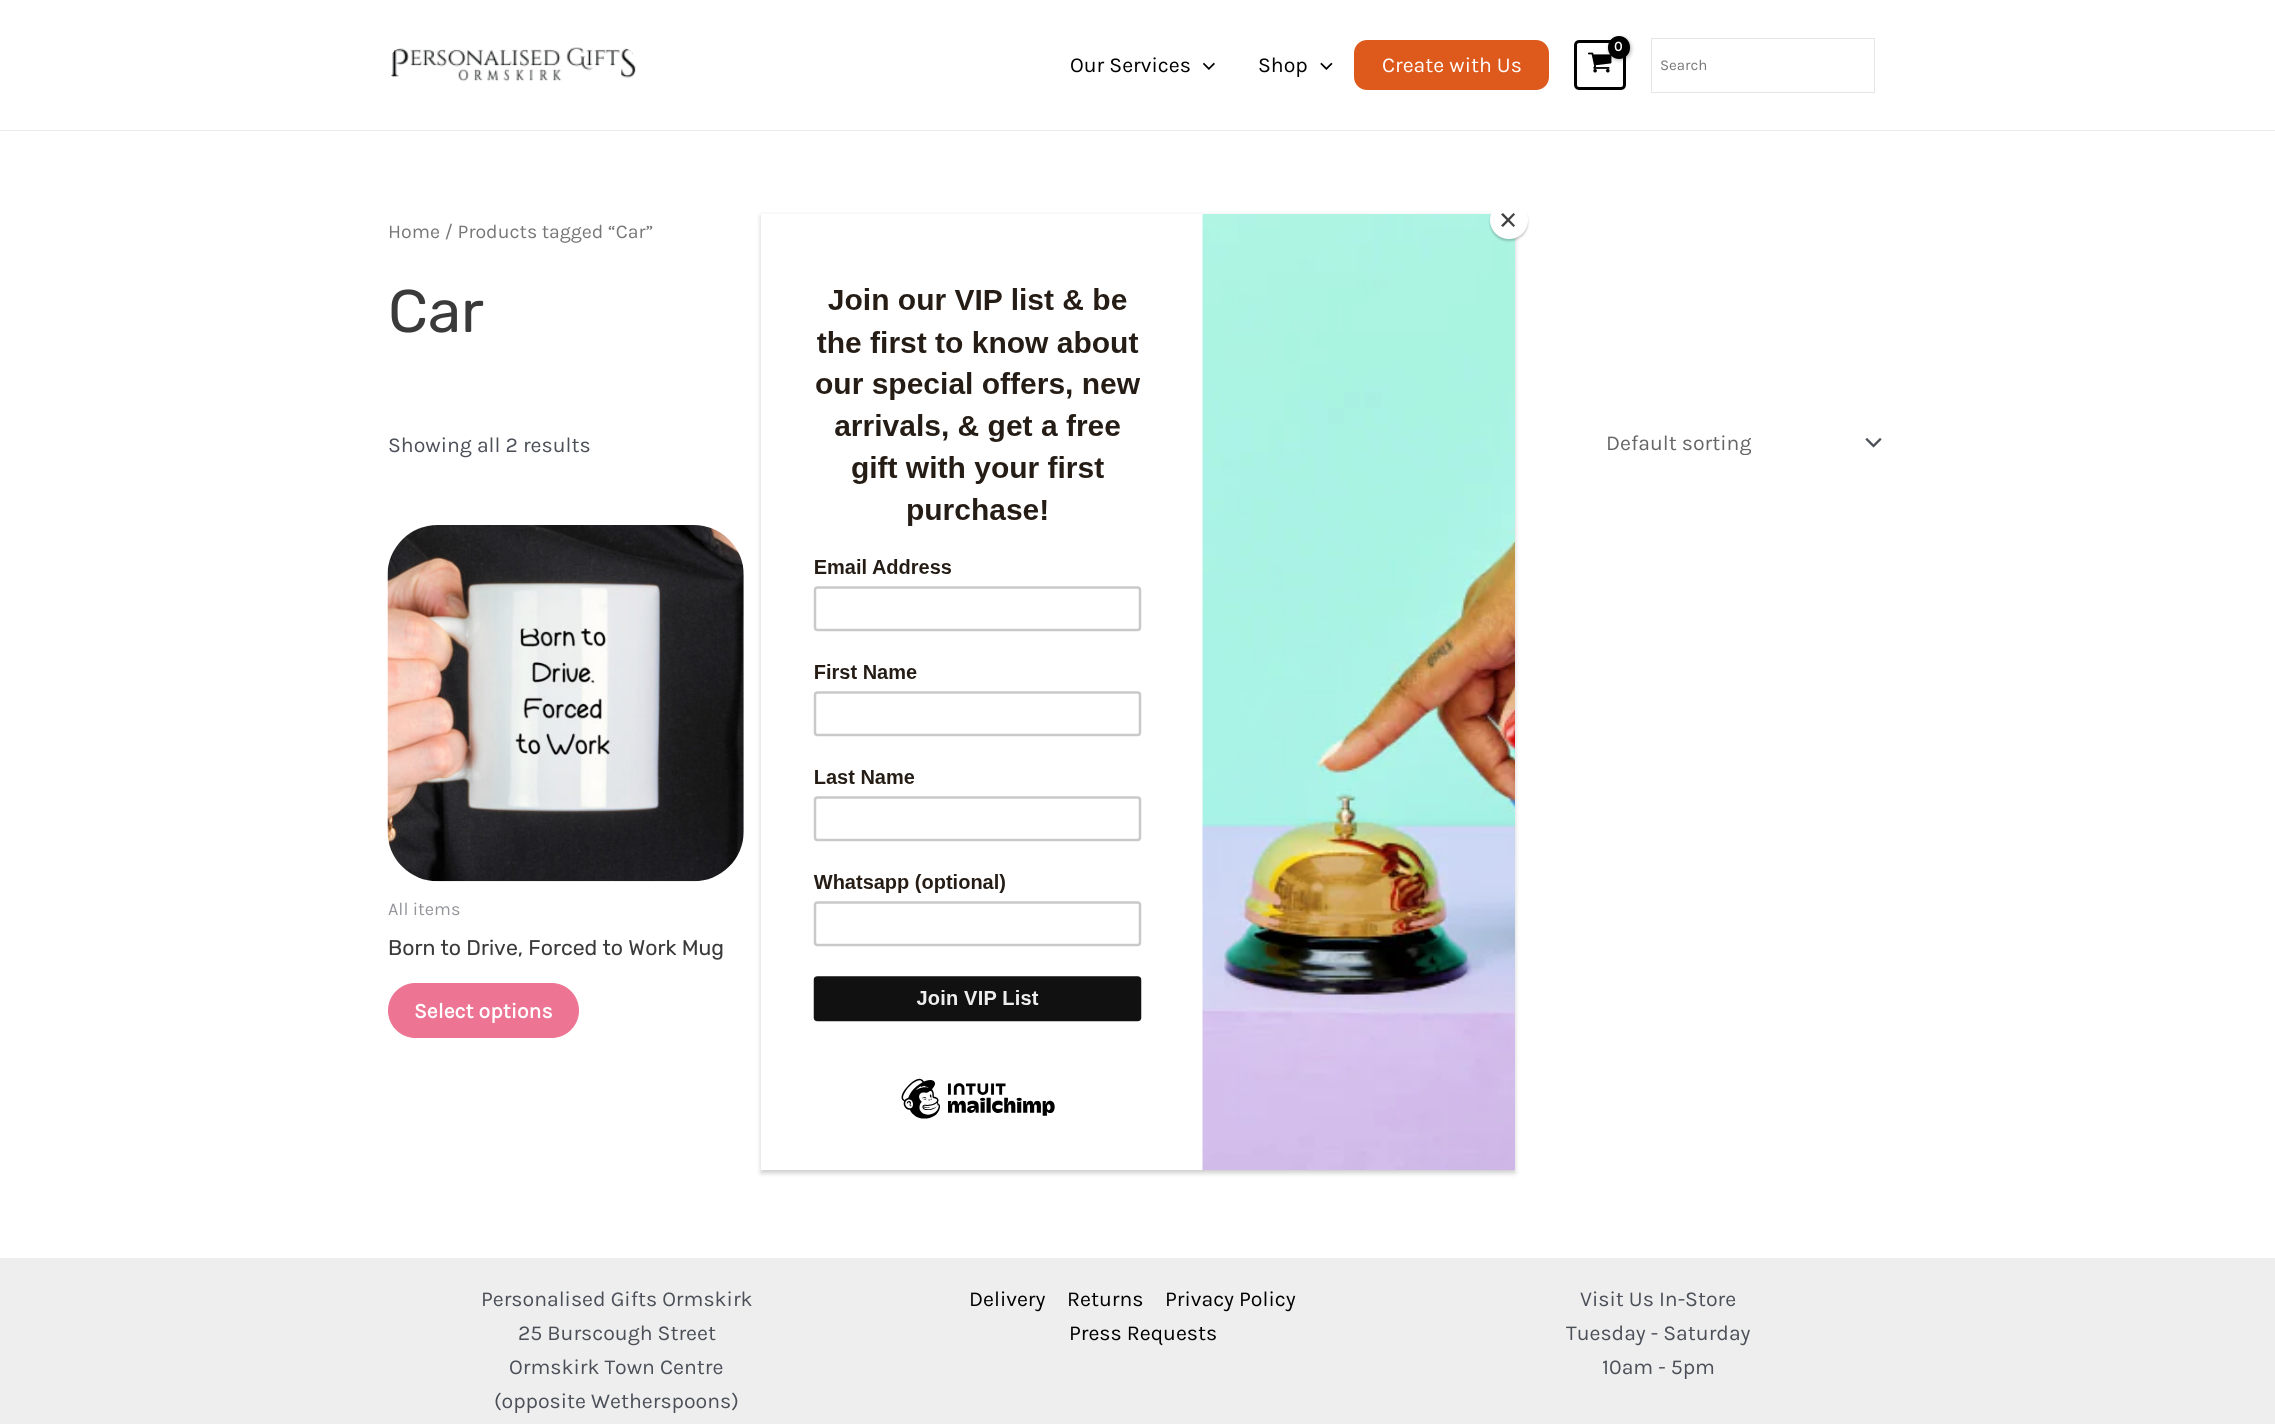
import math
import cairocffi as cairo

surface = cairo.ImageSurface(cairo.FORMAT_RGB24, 2275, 1424)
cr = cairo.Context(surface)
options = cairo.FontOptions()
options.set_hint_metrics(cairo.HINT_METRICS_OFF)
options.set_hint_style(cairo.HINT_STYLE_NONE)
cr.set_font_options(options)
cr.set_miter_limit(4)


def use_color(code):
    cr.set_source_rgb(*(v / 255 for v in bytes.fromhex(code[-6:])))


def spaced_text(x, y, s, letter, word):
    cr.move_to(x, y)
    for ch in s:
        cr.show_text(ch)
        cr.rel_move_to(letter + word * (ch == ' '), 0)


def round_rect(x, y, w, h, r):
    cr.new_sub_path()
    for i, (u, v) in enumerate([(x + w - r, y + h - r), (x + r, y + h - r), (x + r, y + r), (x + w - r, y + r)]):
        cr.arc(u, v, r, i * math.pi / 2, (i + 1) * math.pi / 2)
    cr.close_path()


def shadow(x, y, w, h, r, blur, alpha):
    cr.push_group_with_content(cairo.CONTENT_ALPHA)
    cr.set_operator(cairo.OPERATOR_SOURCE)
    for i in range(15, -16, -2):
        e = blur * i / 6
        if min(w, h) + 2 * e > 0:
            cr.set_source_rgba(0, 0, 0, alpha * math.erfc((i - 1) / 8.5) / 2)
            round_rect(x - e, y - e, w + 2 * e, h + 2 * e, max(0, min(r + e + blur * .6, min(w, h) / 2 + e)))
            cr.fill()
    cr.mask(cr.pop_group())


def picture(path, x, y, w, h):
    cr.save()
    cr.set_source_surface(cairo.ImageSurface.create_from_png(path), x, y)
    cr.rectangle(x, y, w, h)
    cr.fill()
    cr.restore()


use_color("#ffffff")
cr.paint()
use_color("#eaeaea")
cr.rectangle(0, 130, 2275, 1)
cr.fill()
picture("img1.png", 391, 47, 245, 35)
round_rect(1575.5, 41.5, 49, 47, 3.5)
use_color("#000000")
cr.set_line_width(3)
cr.stroke()
picture("img2.png", 1588, 52, 24, 21)
use_color("#000000")
shadow(1609, 38, 22, 22, 11, 2, 0.3)
use_color("#000000")
round_rect(1608, 36, 22, 23, 11)
cr.fill()
cr.select_font_face("Karla", cairo.FONT_SLANT_NORMAL, cairo.FONT_WEIGHT_BOLD)
cr.set_font_size(14)
use_color("#ffffff")
spaced_text(1614, 51, "0", -1, 0)
cr.select_font_face("Karla")
cr.set_font_size(21.25)
use_color("#000000")
cr.move_to(1070, 72)
cr.show_text("Our Services")
picture("img3.png", 1203, 62, 12, 8)
cr.move_to(1258, 72)
cr.show_text("Shop")
picture("img4.png", 1320, 62, 13, 8)
use_color("#de591c")
round_rect(1354, 40, 195, 50, 13)
cr.fill()
use_color("#ffffff")
cr.move_to(1382, 72)
cr.show_text("Create with Us")
cr.rectangle(1651.5, 38.5, 223, 54)
use_color("#e5e5e5")
cr.set_line_width(1)
cr.stroke()
cr.set_font_size(15)
use_color("#777777")
cr.move_to(1660, 70)
cr.show_text("Search")
cr.set_font_size(19.5)
cr.move_to(388, 238)
cr.show_text("Home / Products tagged “Car”")
cr.select_font_face("Rubik")
cr.set_font_size(60)
use_color("#3a3a3a")
cr.move_to(388, 332)
cr.show_text("Car")
cr.select_font_face("Karla")
cr.set_font_size(21.25)
use_color("#4b4f58")
cr.move_to(388, 452)
cr.show_text("Showing all 2 results")
picture("img5.png", 1865, 438, 17, 10)
cr.save()
cr.rectangle(1606, 430, 239, 25)
cr.clip()
use_color("#666666")
cr.move_to(1606, 450)
cr.show_text("Default sorting")
cr.restore()
picture("img6.png", 387, 525, 357, 357)
cr.set_font_size(18)
use_color("#93959b")
cr.move_to(388, 915)
cr.show_text("All items")
cr.select_font_face("Rubik")
cr.set_font_size(21.25)
use_color("#3a3a3a")
cr.move_to(388, 955)
cr.show_text("Born to Drive, Forced to Work Mug")
use_color("#ed7493")
round_rect(388.5, 983.5, 190, 54, 27)
cr.fill_preserve()
cr.stroke()
cr.select_font_face("Karla", cairo.FONT_SLANT_NORMAL, cairo.FONT_WEIGHT_BOLD)
use_color("#ffffff")
cr.move_to(414, 1018)
cr.show_text("Select options")
use_color("#eeeeee")
cr.rectangle(0, 1258, 2275, 166)
cr.fill()
cr.select_font_face("Karla")
use_color("#4b4f58")
cr.move_to(481, 1306)
cr.show_text("Personalised Gifts Ormskirk")
cr.move_to(518, 1340)
cr.show_text("25 Burscough Street")
cr.move_to(509, 1374)
cr.show_text("Ormskirk Town Centre")
cr.move_to(494, 1408)
cr.show_text("(opposite Wetherspoons)")
use_color("#000000")
cr.move_to(969, 1306)
cr.show_text("Delivery")
cr.move_to(1067, 1306)
cr.show_text("Returns")
cr.move_to(1165, 1306)
cr.show_text("Privacy Policy")
cr.move_to(1069, 1340)
cr.show_text("Press Requests")
use_color("#4b4f58")
cr.move_to(1580, 1306)
cr.show_text("Visit Us In-Store")
cr.move_to(1566, 1340)
cr.show_text("Tuesday - Saturday")
cr.move_to(1602, 1374)
cr.show_text("10am - 5pm")
use_color("#000000")
shadow(761, 216, 754, 957, 0, 2.5, 0.2)
picture("img7.png", 761, 214, 754, 956)
shadow(1490, 204, 38, 37, 18.5, 1, 0.2)
use_color("#ffffff")
cr.arc(1509, 220, 19, 0, 2 * math.pi)
cr.fill()
use_color("#414141")
cr.new_path()
cr.move_to(1513.5, 213)
cr.line_to(1515, 214.5)
cr.line_to(1503, 227)
cr.line_to(1501, 225.5)
cr.close_path()
cr.fill()
cr.new_path()
cr.move_to(1501, 214.5)
cr.line_to(1503, 213)
cr.line_to(1515, 225.5)
cr.line_to(1513.5, 227)
cr.close_path()
cr.fill()
surface.write_to_png("result.png")
